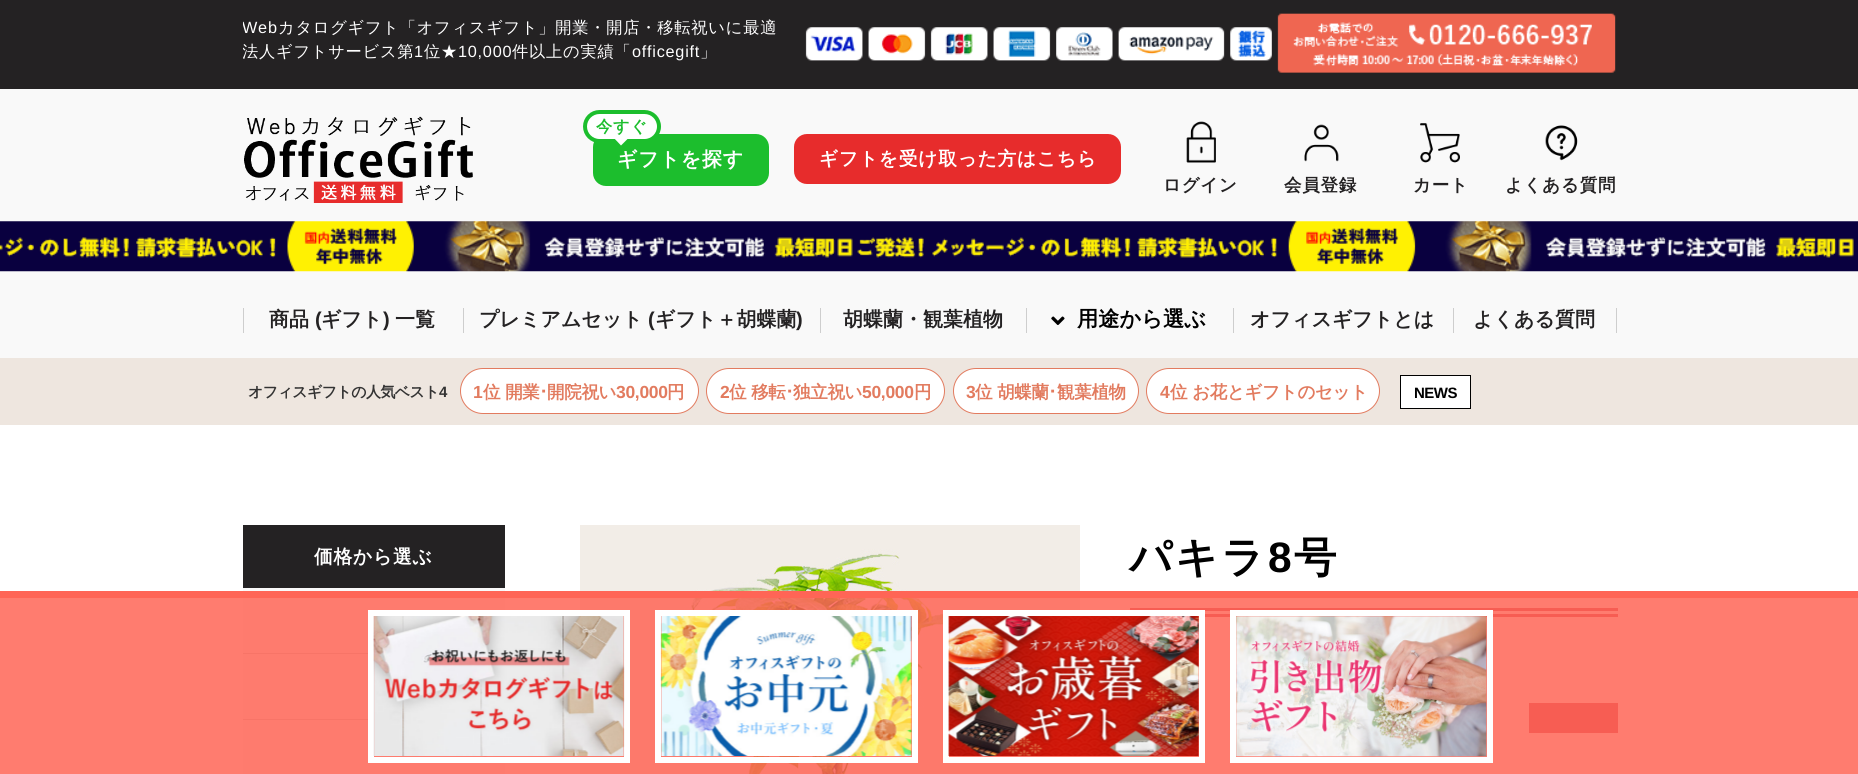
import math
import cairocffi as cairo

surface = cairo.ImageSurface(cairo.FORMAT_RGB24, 1858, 774)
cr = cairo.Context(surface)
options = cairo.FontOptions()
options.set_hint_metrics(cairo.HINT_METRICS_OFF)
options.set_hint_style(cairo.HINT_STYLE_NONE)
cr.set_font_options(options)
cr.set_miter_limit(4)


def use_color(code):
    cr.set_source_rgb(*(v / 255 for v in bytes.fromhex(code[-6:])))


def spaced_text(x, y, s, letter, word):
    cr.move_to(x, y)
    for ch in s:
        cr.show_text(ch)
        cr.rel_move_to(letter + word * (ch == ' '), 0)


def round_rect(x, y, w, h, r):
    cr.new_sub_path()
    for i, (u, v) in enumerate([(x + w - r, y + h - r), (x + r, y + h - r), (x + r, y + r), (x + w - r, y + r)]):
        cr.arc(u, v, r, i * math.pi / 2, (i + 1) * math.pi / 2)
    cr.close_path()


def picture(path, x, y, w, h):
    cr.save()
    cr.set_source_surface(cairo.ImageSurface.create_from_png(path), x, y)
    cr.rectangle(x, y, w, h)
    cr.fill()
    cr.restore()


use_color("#ffffff")
cr.paint()
use_color("#f9f9f9")
cr.rectangle(0, 89, 1858, 269)
cr.fill()
use_color("#242223")
cr.rectangle(0, 0, 1858, 89)
cr.fill()
cr.save()
cr.rectangle(243, 0, 1375, 89)
cr.clip()
cr.select_font_face("Liberation Sans")
cr.set_font_size(16.25)
use_color("#ffffff")
spaced_text(242, 33, "Web", 0.75, 0)
cr.restore()
cr.select_font_face("WenQuanYi Zen Hei Medium")
cr.set_font_size(16.25)
use_color("#ffffff")
spaced_text(278, 33, "カタログギフト「オフィスギフト」開業・開店・移転祝いに最適", 0.75, 0)
cr.save()
cr.rectangle(243, 0, 1375, 89)
cr.clip()
spaced_text(242, 57, "法人ギフトサービス第", 0.75, 0)
cr.restore()
cr.select_font_face("Liberation Sans")
spaced_text(414, 57, "1", 0.75, 0)
cr.select_font_face("WenQuanYi Zen Hei Medium")
spaced_text(424, 57, "位★", 0.75, 0)
cr.select_font_face("Liberation Sans")
spaced_text(458, 57, "10,000", 0.75, 0)
cr.select_font_face("WenQuanYi Zen Hei Medium")
spaced_text(512, 57, "件以上の実績「", 0.75, 0)
cr.select_font_face("Liberation Sans")
spaced_text(632, 57, "officegift", 0.75, 0)
cr.select_font_face("WenQuanYi Zen Hei Medium")
spaced_text(700, 57, "」", 0.75, 0)
picture("img1.png", 805, 13, 811, 60)
picture("img2.png", 244, 116, 229, 87)
use_color("#1cbe2d")
round_rect(593, 134, 176, 52, 13)
cr.fill()
use_color("#ffffff")
round_rect(585, 112, 74, 29, 14.5)
cr.fill_preserve()
use_color("#1cbe2d")
cr.set_line_width(4)
cr.stroke()
cr.select_font_face("WenQuanYi Zen Hei", cairo.FONT_SLANT_NORMAL, cairo.FONT_WEIGHT_BOLD)
spaced_text(596, 132, "今すぐ", 0.75, 0)
use_color("#ffffff")
cr.new_path()
cr.move_to(612.5, 136.5)
cr.line_to(630, 136.5)
cr.line_to(621, 145.5)
cr.close_path()
cr.fill()
cr.set_font_size(20)
spaced_text(617, 166, "ギフトを探す", 0.75, 0)
use_color("#e72c2c")
round_rect(794, 134, 327, 50, 13)
cr.fill()
cr.set_font_size(18.75)
use_color("#ffffff")
spaced_text(819, 165, "ギフトを受け取った方はこちら", 0.75, 0)
picture("img3.png", 1186, 121, 30, 42)
cr.set_font_size(17.5)
use_color("#242223")
spaced_text(1163, 191, "ログイン", 0.75, 0)
picture("img4.png", 1304, 124, 35, 38)
spaced_text(1284, 191, "会員登録", 0.75, 0)
picture("img5.png", 1420, 123, 40, 40)
spaced_text(1413, 191, "カート", 0.75, 0)
picture("img6.png", 1545, 125, 33, 36)
spaced_text(1505, 191, "よくある質問", 0.75, 0)
picture("img7.png", 0, 221, 1858, 51)
use_color("#cecece")
cr.rectangle(243, 308, 1, 25)
cr.fill()
cr.set_font_size(20)
use_color("#242223")
cr.move_to(269, 326)
cr.show_text("商品")
cr.select_font_face("Liberation Sans", cairo.FONT_SLANT_NORMAL, cairo.FONT_WEIGHT_BOLD)
cr.move_to(315, 326)
cr.show_text("(")
cr.select_font_face("WenQuanYi Zen Hei", cairo.FONT_SLANT_NORMAL, cairo.FONT_WEIGHT_BOLD)
cr.move_to(321, 326)
cr.show_text("ギフト")
cr.select_font_face("Liberation Sans", cairo.FONT_SLANT_NORMAL, cairo.FONT_WEIGHT_BOLD)
cr.move_to(383, 326)
cr.show_text(")")
cr.select_font_face("WenQuanYi Zen Hei", cairo.FONT_SLANT_NORMAL, cairo.FONT_WEIGHT_BOLD)
cr.move_to(395, 326)
cr.show_text("一覧")
use_color("#cecece")
cr.rectangle(463, 308, 1, 25)
cr.fill()
use_color("#242223")
cr.move_to(479, 326)
cr.show_text("プレミアムセット")
cr.select_font_face("Liberation Sans", cairo.FONT_SLANT_NORMAL, cairo.FONT_WEIGHT_BOLD)
cr.move_to(648, 326)
cr.show_text("(")
cr.select_font_face("WenQuanYi Zen Hei", cairo.FONT_SLANT_NORMAL, cairo.FONT_WEIGHT_BOLD)
cr.move_to(655, 326)
cr.show_text("ギフト＋胡蝶蘭")
cr.select_font_face("Liberation Sans", cairo.FONT_SLANT_NORMAL, cairo.FONT_WEIGHT_BOLD)
cr.move_to(796, 326)
cr.show_text(")")
use_color("#cecece")
cr.rectangle(820, 308, 1, 25)
cr.fill()
cr.select_font_face("WenQuanYi Zen Hei", cairo.FONT_SLANT_NORMAL, cairo.FONT_WEIGHT_BOLD)
use_color("#242223")
cr.move_to(843, 326)
cr.show_text("胡蝶蘭・観葉植物")
use_color("#cecece")
cr.rectangle(1026, 308, 1, 25)
cr.fill()
picture("img8.png", 1051, 316, 14, 9)
cr.set_font_size(21.25)
use_color("#000000")
cr.move_to(1077, 326)
cr.show_text("用途から選ぶ")
use_color("#cecece")
cr.rectangle(1233, 308, 1, 25)
cr.fill()
cr.set_font_size(20)
use_color("#242223")
cr.move_to(1250, 326)
cr.show_text("オフィスギフトとは")
use_color("#cecece")
cr.rectangle(1453, 308, 1, 25)
cr.fill()
use_color("#242223")
cr.move_to(1473, 326)
cr.show_text("よくある質問")
use_color("#cecece")
cr.rectangle(1616, 308, 1, 25)
cr.fill()
use_color("#eee6df")
cr.rectangle(0, 358, 1858, 67)
cr.fill()
cr.set_font_size(15)
use_color("#333333")
spaced_text(248, 397, "オフィスギフトの人気ベスト", -0.6, 0)
cr.select_font_face("Liberation Sans", cairo.FONT_SLANT_NORMAL, cairo.FONT_WEIGHT_BOLD)
spaced_text(439, 397, "4", -0.6, 0)
use_color("#ffffff")
round_rect(460.5, 368.5, 238, 45, 22.5)
cr.fill_preserve()
use_color("#e27b5f")
cr.set_line_width(1)
cr.stroke()
cr.set_font_size(17.5)
spaced_text(473, 398, "1", -0.3, 0)
cr.select_font_face("WenQuanYi Zen Hei", cairo.FONT_SLANT_NORMAL, cairo.FONT_WEIGHT_BOLD)
spaced_text(483, 398, "位 開業", -0.3, 0)
cr.select_font_face("IPAPGothic", cairo.FONT_SLANT_NORMAL, cairo.FONT_WEIGHT_BOLD)
spaced_text(539, 398, "･", -0.3, 0)
cr.select_font_face("WenQuanYi Zen Hei", cairo.FONT_SLANT_NORMAL, cairo.FONT_WEIGHT_BOLD)
spaced_text(547, 398, "開院祝い", -0.3, 0)
cr.select_font_face("Liberation Sans", cairo.FONT_SLANT_NORMAL, cairo.FONT_WEIGHT_BOLD)
spaced_text(616, 398, "30,000", -0.3, 0)
cr.select_font_face("WenQuanYi Zen Hei", cairo.FONT_SLANT_NORMAL, cairo.FONT_WEIGHT_BOLD)
spaced_text(667, 398, "円", -0.3, 0)
use_color("#ffffff")
round_rect(706.5, 368.5, 238, 45, 22.5)
cr.fill_preserve()
use_color("#e27b5f")
cr.stroke()
cr.select_font_face("Liberation Sans", cairo.FONT_SLANT_NORMAL, cairo.FONT_WEIGHT_BOLD)
spaced_text(720, 398, "2", -0.3, 0)
cr.select_font_face("WenQuanYi Zen Hei", cairo.FONT_SLANT_NORMAL, cairo.FONT_WEIGHT_BOLD)
spaced_text(729, 398, "位 移転", -0.3, 0)
cr.select_font_face("IPAPGothic", cairo.FONT_SLANT_NORMAL, cairo.FONT_WEIGHT_BOLD)
spaced_text(785, 398, "･", -0.3, 0)
cr.select_font_face("WenQuanYi Zen Hei", cairo.FONT_SLANT_NORMAL, cairo.FONT_WEIGHT_BOLD)
spaced_text(793, 398, "独立祝い", -0.3, 0)
cr.select_font_face("Liberation Sans", cairo.FONT_SLANT_NORMAL, cairo.FONT_WEIGHT_BOLD)
spaced_text(862, 398, "50,000", -0.3, 0)
cr.select_font_face("WenQuanYi Zen Hei", cairo.FONT_SLANT_NORMAL, cairo.FONT_WEIGHT_BOLD)
spaced_text(914, 398, "円", -0.3, 0)
use_color("#ffffff")
round_rect(953.5, 368.5, 185, 45, 22.5)
cr.fill_preserve()
use_color("#e27b5f")
cr.stroke()
cr.select_font_face("Liberation Sans", cairo.FONT_SLANT_NORMAL, cairo.FONT_WEIGHT_BOLD)
spaced_text(966, 398, "3", -0.3, 0)
cr.select_font_face("WenQuanYi Zen Hei", cairo.FONT_SLANT_NORMAL, cairo.FONT_WEIGHT_BOLD)
spaced_text(975, 398, "位 胡蝶蘭", -0.3, 0)
cr.select_font_face("IPAPGothic", cairo.FONT_SLANT_NORMAL, cairo.FONT_WEIGHT_BOLD)
spaced_text(1048, 398, "･", -0.3, 0)
cr.select_font_face("WenQuanYi Zen Hei", cairo.FONT_SLANT_NORMAL, cairo.FONT_WEIGHT_BOLD)
spaced_text(1057, 398, "観葉植物", -0.3, 0)
use_color("#ffffff")
round_rect(1146.5, 368.5, 233, 45, 22.5)
cr.fill_preserve()
use_color("#e27b5f")
cr.stroke()
cr.select_font_face("Liberation Sans", cairo.FONT_SLANT_NORMAL, cairo.FONT_WEIGHT_BOLD)
spaced_text(1160, 398, "4", -0.3, 0)
cr.select_font_face("WenQuanYi Zen Hei", cairo.FONT_SLANT_NORMAL, cairo.FONT_WEIGHT_BOLD)
spaced_text(1170, 398, "位 お花とギフトのセット", -0.3, 0)
use_color("#ffffff")
cr.rectangle(1400.5, 375.5, 70, 33)
cr.fill_preserve()
use_color("#000000")
cr.stroke()
cr.select_font_face("Liberation Sans", cairo.FONT_SLANT_NORMAL, cairo.FONT_WEIGHT_BOLD)
cr.set_font_size(15)
spaced_text(1414, 398, "NEWS", -0.5, 0)
use_color("#242223")
cr.rectangle(243, 525, 262, 63)
cr.fill()
cr.select_font_face("WenQuanYi Zen Hei", cairo.FONT_SLANT_NORMAL, cairo.FONT_WEIGHT_BOLD)
cr.set_font_size(18.75)
use_color("#ffffff")
spaced_text(314, 563, "価格から選ぶ", 0.75, 0)
use_color("#f9f9f9")
cr.rectangle(243, 588, 262, 65)
cr.fill()
use_color("#cbcbcb")
cr.rectangle(243, 653, 132, 1)
cr.fill()
use_color("#f9f9f9")
cr.rectangle(243, 654, 132, 65)
cr.fill()
use_color("#cbcbcb")
cr.rectangle(243, 719, 132, 1)
cr.fill()
use_color("#f9f9f9")
cr.rectangle(243, 720, 262, 54)
cr.fill()
picture("img9.png", 482, 756, 6, 1)
picture("img10.png", 580, 525, 500, 249)
use_color("#cc2f40")
cr.rectangle(1130, 608, 488, 3)
cr.fill()
cr.rectangle(1198, 614, 420, 3)
cr.fill()
cr.set_font_size(42.5)
use_color("#000000")
spaced_text(1129, 572, "パキラ", 2.5, 0)
cr.select_font_face("Liberation Sans", cairo.FONT_SLANT_NORMAL, cairo.FONT_WEIGHT_BOLD)
spaced_text(1268, 572, "8", 2.5, 0)
cr.select_font_face("WenQuanYi Zen Hei", cairo.FONT_SLANT_NORMAL, cairo.FONT_WEIGHT_BOLD)
spaced_text(1294, 572, "号", 2.5, 0)
use_color("#cc2f40")
cr.rectangle(1529, 703, 89, 30)
cr.fill()
cr.set_source_rgba(1, 0.396, 0.337, 0.85)
cr.rectangle(0, 598, 1858, 176)
cr.fill()
use_color("#ff6556")
cr.rectangle(0, 591, 1858, 7)
cr.fill()
cr.rectangle(371, 613, 256, 147)
use_color("#ffffff")
cr.set_line_width(6)
cr.stroke()
picture("img11.png", 373, 616, 252, 140)
cr.rectangle(658, 613, 257, 147)
cr.stroke()
picture("img12.png", 660, 616, 252, 140)
cr.rectangle(946, 613, 256, 147)
cr.stroke()
picture("img13.png", 948, 616, 251, 140)
cr.rectangle(1233, 613, 257, 147)
cr.stroke()
picture("img14.png", 1236, 616, 251, 141)
surface.write_to_png("result.png")
